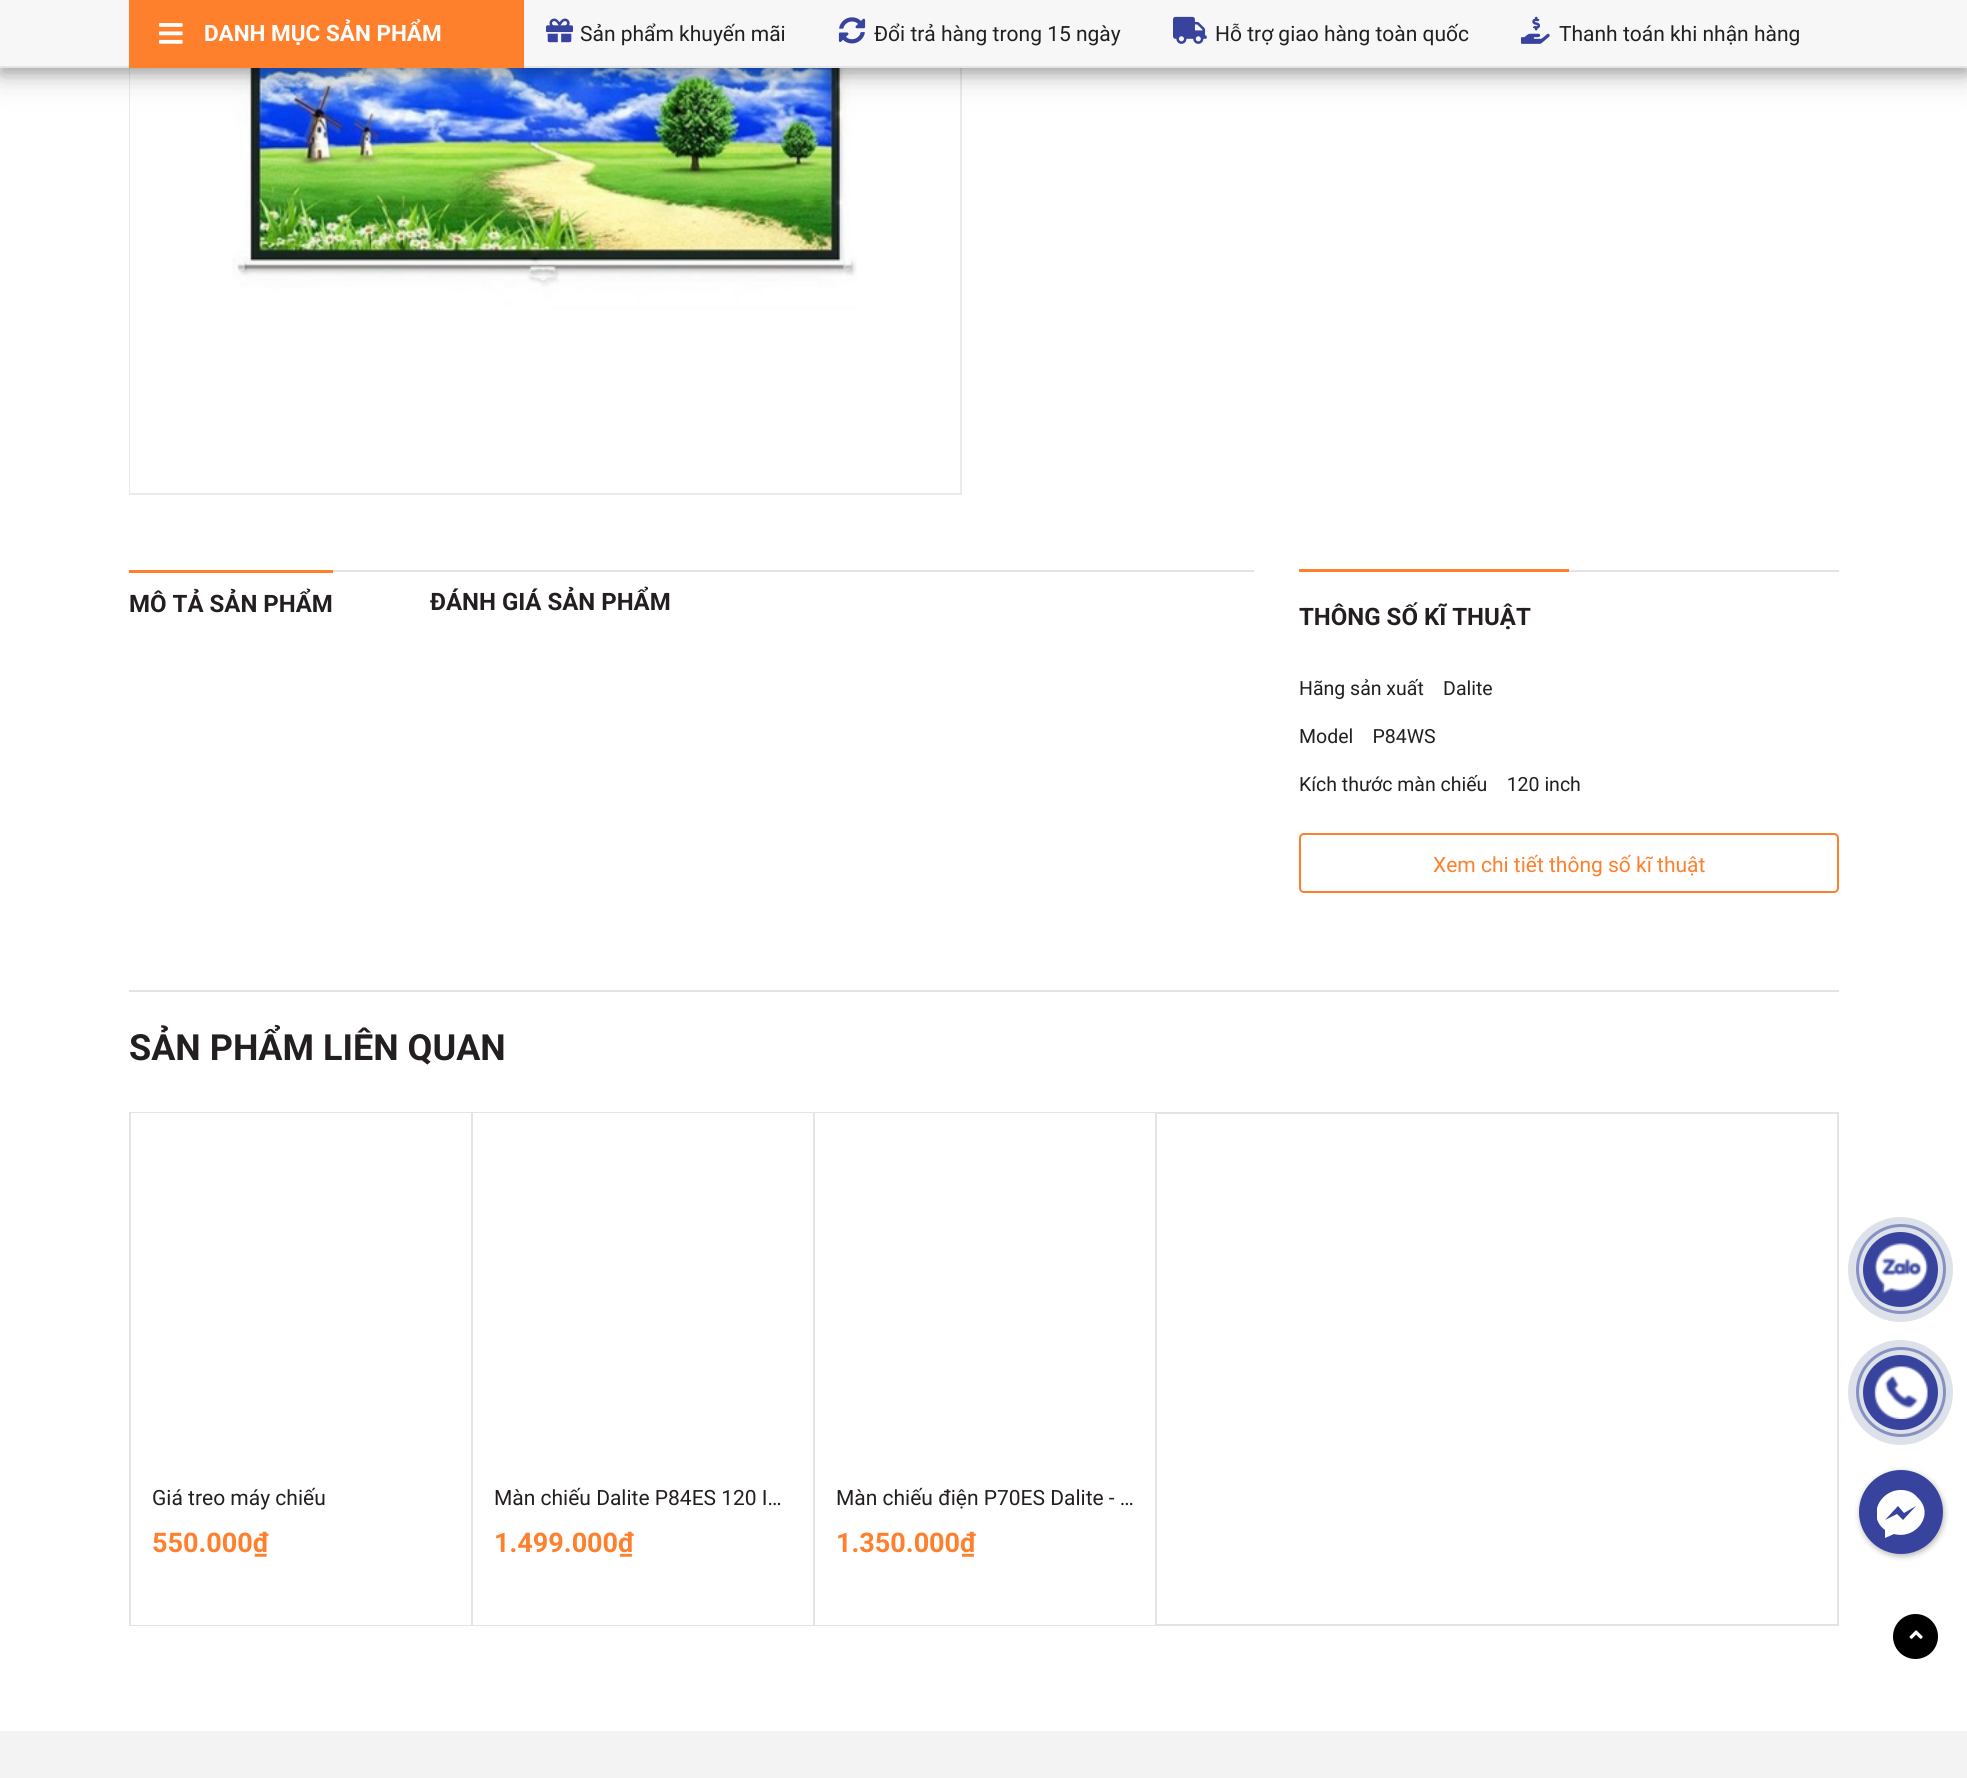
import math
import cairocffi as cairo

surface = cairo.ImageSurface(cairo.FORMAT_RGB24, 1967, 1778)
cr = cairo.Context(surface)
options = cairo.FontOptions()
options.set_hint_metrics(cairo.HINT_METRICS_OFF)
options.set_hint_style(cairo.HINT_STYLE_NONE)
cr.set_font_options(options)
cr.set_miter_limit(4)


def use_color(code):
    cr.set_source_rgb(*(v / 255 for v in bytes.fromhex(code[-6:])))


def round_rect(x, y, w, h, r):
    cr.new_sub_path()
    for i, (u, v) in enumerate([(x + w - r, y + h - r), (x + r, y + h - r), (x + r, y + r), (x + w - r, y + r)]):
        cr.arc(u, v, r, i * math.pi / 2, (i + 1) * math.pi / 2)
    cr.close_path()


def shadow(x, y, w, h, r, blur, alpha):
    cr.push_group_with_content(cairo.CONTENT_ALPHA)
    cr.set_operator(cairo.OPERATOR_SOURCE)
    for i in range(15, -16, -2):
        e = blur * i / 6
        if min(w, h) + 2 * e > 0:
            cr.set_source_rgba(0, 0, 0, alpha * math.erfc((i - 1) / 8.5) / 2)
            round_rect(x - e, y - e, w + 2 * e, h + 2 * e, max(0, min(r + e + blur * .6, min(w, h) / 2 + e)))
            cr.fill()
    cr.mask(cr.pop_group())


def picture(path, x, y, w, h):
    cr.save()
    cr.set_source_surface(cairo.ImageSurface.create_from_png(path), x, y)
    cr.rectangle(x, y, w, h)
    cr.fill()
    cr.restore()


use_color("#ffffff")
cr.paint()
cr.rectangle(130, -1, 831, 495)
use_color("#ebebeb")
cr.stroke()
picture("img6.png", 130, 68, 727, 425)
use_color("#000000")
shadow(0, 9, 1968, 68, 0, 15, 0.19)
shadow(0, 6, 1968, 68, 0, 6, 0.2)
use_color("#f7f7f7")
cr.rectangle(0, 0, 1967, 66)
cr.fill()
use_color("#e4e4e4")
cr.rectangle(0, 66, 1967, 2)
cr.fill()
use_color("#fe802c")
cr.rectangle(129, 0, 395, 68)
cr.fill()
picture("img1.png", 159, 23, 24, 21)
cr.select_font_face("Roboto", cairo.FONT_SLANT_NORMAL, cairo.FONT_WEIGHT_BOLD)
cr.set_font_size(22.5)
use_color("#ffffff")
cr.move_to(204, 41)
cr.show_text("DANH MỤC SẢN PHẨM")
picture("img2.png", 546, 18, 27, 25)
cr.select_font_face("Roboto")
cr.set_font_size(21)
use_color("#231f20")
cr.move_to(580, 41)
cr.show_text("Sản phẩm khuyến mãi")
picture("img3.png", 838, 17, 28, 27)
cr.move_to(874, 41)
cr.show_text("Đổi trả hàng trong 15 ngày")
picture("img4.png", 1173, 16, 34, 28)
cr.move_to(1215, 41)
cr.show_text("Hỗ trợ giao hàng toàn quốc")
picture("img5.png", 1521, 16, 29, 28)
cr.move_to(1559, 41)
cr.show_text("Thanh toán khi nhận hàng")
use_color("#e4e4e4")
cr.rectangle(333, 570, 921, 2)
cr.fill()
use_color("#fe802c")
cr.rectangle(129, 570, 204, 3)
cr.fill()
cr.select_font_face("Roboto", cairo.FONT_SLANT_NORMAL, cairo.FONT_WEIGHT_BOLD)
cr.set_font_size(24)
use_color("#231f20")
cr.move_to(129, 612)
cr.show_text("MÔ TẢ SẢN PHẨM")
cr.move_to(430, 610)
cr.show_text("ĐÁNH GIÁ SẢN PHẨM")
use_color("#e4e4e4")
cr.rectangle(1569, 570, 270, 2)
cr.fill()
use_color("#fe802c")
cr.rectangle(1299, 569, 270, 3)
cr.fill()
use_color("#231f20")
cr.move_to(1299, 625)
cr.show_text("THÔNG SỐ KĨ THUẬT")
cr.select_font_face("Roboto")
cr.set_font_size(19.5)
cr.move_to(1299, 695)
cr.show_text("Hãng sản xuất    Dalite")
cr.move_to(1299, 743)
cr.show_text("Model    P84WS")
cr.move_to(1299, 791)
cr.show_text("Kích thước màn chiếu    120 inch")
round_rect(1300, 834, 538, 58, 4)
use_color("#fe802c")
cr.stroke()
cr.set_font_size(21)
cr.move_to(1433, 872)
cr.show_text("Xem chi tiết thông số kĩ thuật")
use_color("#e4e4e4")
cr.rectangle(129, 990, 1710, 2)
cr.fill()
cr.select_font_face("Roboto", cairo.FONT_SLANT_NORMAL, cairo.FONT_WEIGHT_BOLD)
cr.set_font_size(36)
use_color("#231f20")
cr.move_to(129, 1060)
cr.show_text("SẢN PHẨM LIÊN QUAN")
cr.rectangle(130, 1113, 1708, 512)
use_color("#e4e4e4")
cr.stroke()
use_color("#ffffff")
cr.rectangle(131, 1113, 340, 512)
cr.fill()
use_color("#e4e4e4")
cr.rectangle(471, 1113, 2, 512)
cr.fill()
cr.select_font_face("Roboto")
cr.set_font_size(21)
use_color("#231f20")
cr.move_to(152, 1505)
cr.show_text("Giá treo máy chiếu")
cr.select_font_face("Roboto", cairo.FONT_SLANT_NORMAL, cairo.FONT_WEIGHT_BOLD)
cr.set_font_size(27)
use_color("#fe802c")
cr.move_to(152, 1552)
cr.show_text("550.000₫")
use_color("#ffffff")
cr.rectangle(473, 1113, 340, 512)
cr.fill()
use_color("#e4e4e4")
cr.rectangle(813, 1113, 2, 512)
cr.fill()
cr.select_font_face("Roboto")
cr.set_font_size(21)
use_color("#231f20")
cr.move_to(494, 1505)
cr.show_text("Màn chiếu Dalite P84ES 120 I…")
cr.select_font_face("Roboto", cairo.FONT_SLANT_NORMAL, cairo.FONT_WEIGHT_BOLD)
cr.set_font_size(27)
use_color("#fe802c")
cr.move_to(494, 1552)
cr.show_text("1.499.000₫")
use_color("#ffffff")
cr.rectangle(815, 1113, 340, 512)
cr.fill()
use_color("#e4e4e4")
cr.rectangle(1155, 1113, 2, 512)
cr.fill()
cr.select_font_face("Roboto")
cr.set_font_size(21)
use_color("#231f20")
cr.move_to(836, 1505)
cr.show_text("Màn chiếu điện P70ES Dalite - …")
cr.select_font_face("Roboto", cairo.FONT_SLANT_NORMAL, cairo.FONT_WEIGHT_BOLD)
cr.set_font_size(27)
use_color("#fe802c")
cr.move_to(836, 1552)
cr.show_text("1.350.000₫")
use_color("#000000")
cr.new_path()
cr.arc(1915.5, 1636.5, 22.5, 0, 2 * math.pi)
cr.fill()
picture("img7.png", 1909, 1630, 14, 9)
use_color("#f3f3f3")
cr.rectangle(0, 1731, 1967, 47)
cr.fill()
cr.arc(1901, 1269, 43.5, 0, 2 * math.pi)
use_color("#9ca1cf")
cr.set_line_width(3)
cr.stroke()
cr.set_source_rgba(0.027, 0.161, 0.404, 0.14)
cr.arc(1900.5, 1269.5, 52.5, 0, 2 * math.pi)
cr.fill()
use_color("#38439e")
cr.arc(1900.5, 1269.5, 37.5, 0, 2 * math.pi)
cr.fill()
picture("img8.png", 1874, 1243, 54, 51)
cr.arc(1901, 1392, 43.5, 0, 2 * math.pi)
use_color("#9ca1cf")
cr.stroke()
cr.set_source_rgba(0.027, 0.161, 0.404, 0.14)
cr.arc(1900.5, 1392.5, 52.5, 0, 2 * math.pi)
cr.fill()
use_color("#38439e")
cr.arc(1900.5, 1392.5, 37.5, 0, 2 * math.pi)
cr.fill()
picture("img9.png", 1874, 1366, 54, 53)
use_color("#000000")
shadow(1860, 1472, 84, 84, 42, 3, 0.3)
use_color("#38439e")
cr.arc(1901, 1512, 42, 0, 2 * math.pi)
cr.fill()
cr.save()
cr.rectangle(1877, 1490, 48, 49)
cr.clip()
use_color("#ffffff")
cr.new_path()
cr.move_to(1901, 1490)
cr.curve_to(1879, 1490, 1867, 1517, 1885, 1530)
cr.line_to(1885, 1538)
cr.line_to(1894, 1534)
cr.curve_to(1916, 1540, 1936, 1514, 1917, 1497)
cr.curve_to(1913, 1492, 1907, 1490, 1901, 1490)
cr.close_path()
cr.move_to(1903, 1520)
cr.line_to(1897, 1514)
cr.line_to(1885, 1520)
cr.line_to(1898, 1506)
cr.line_to(1904, 1513)
cr.line_to(1916, 1506)
cr.close_path()
cr.fill()
cr.restore()
surface.write_to_png("result.png")
